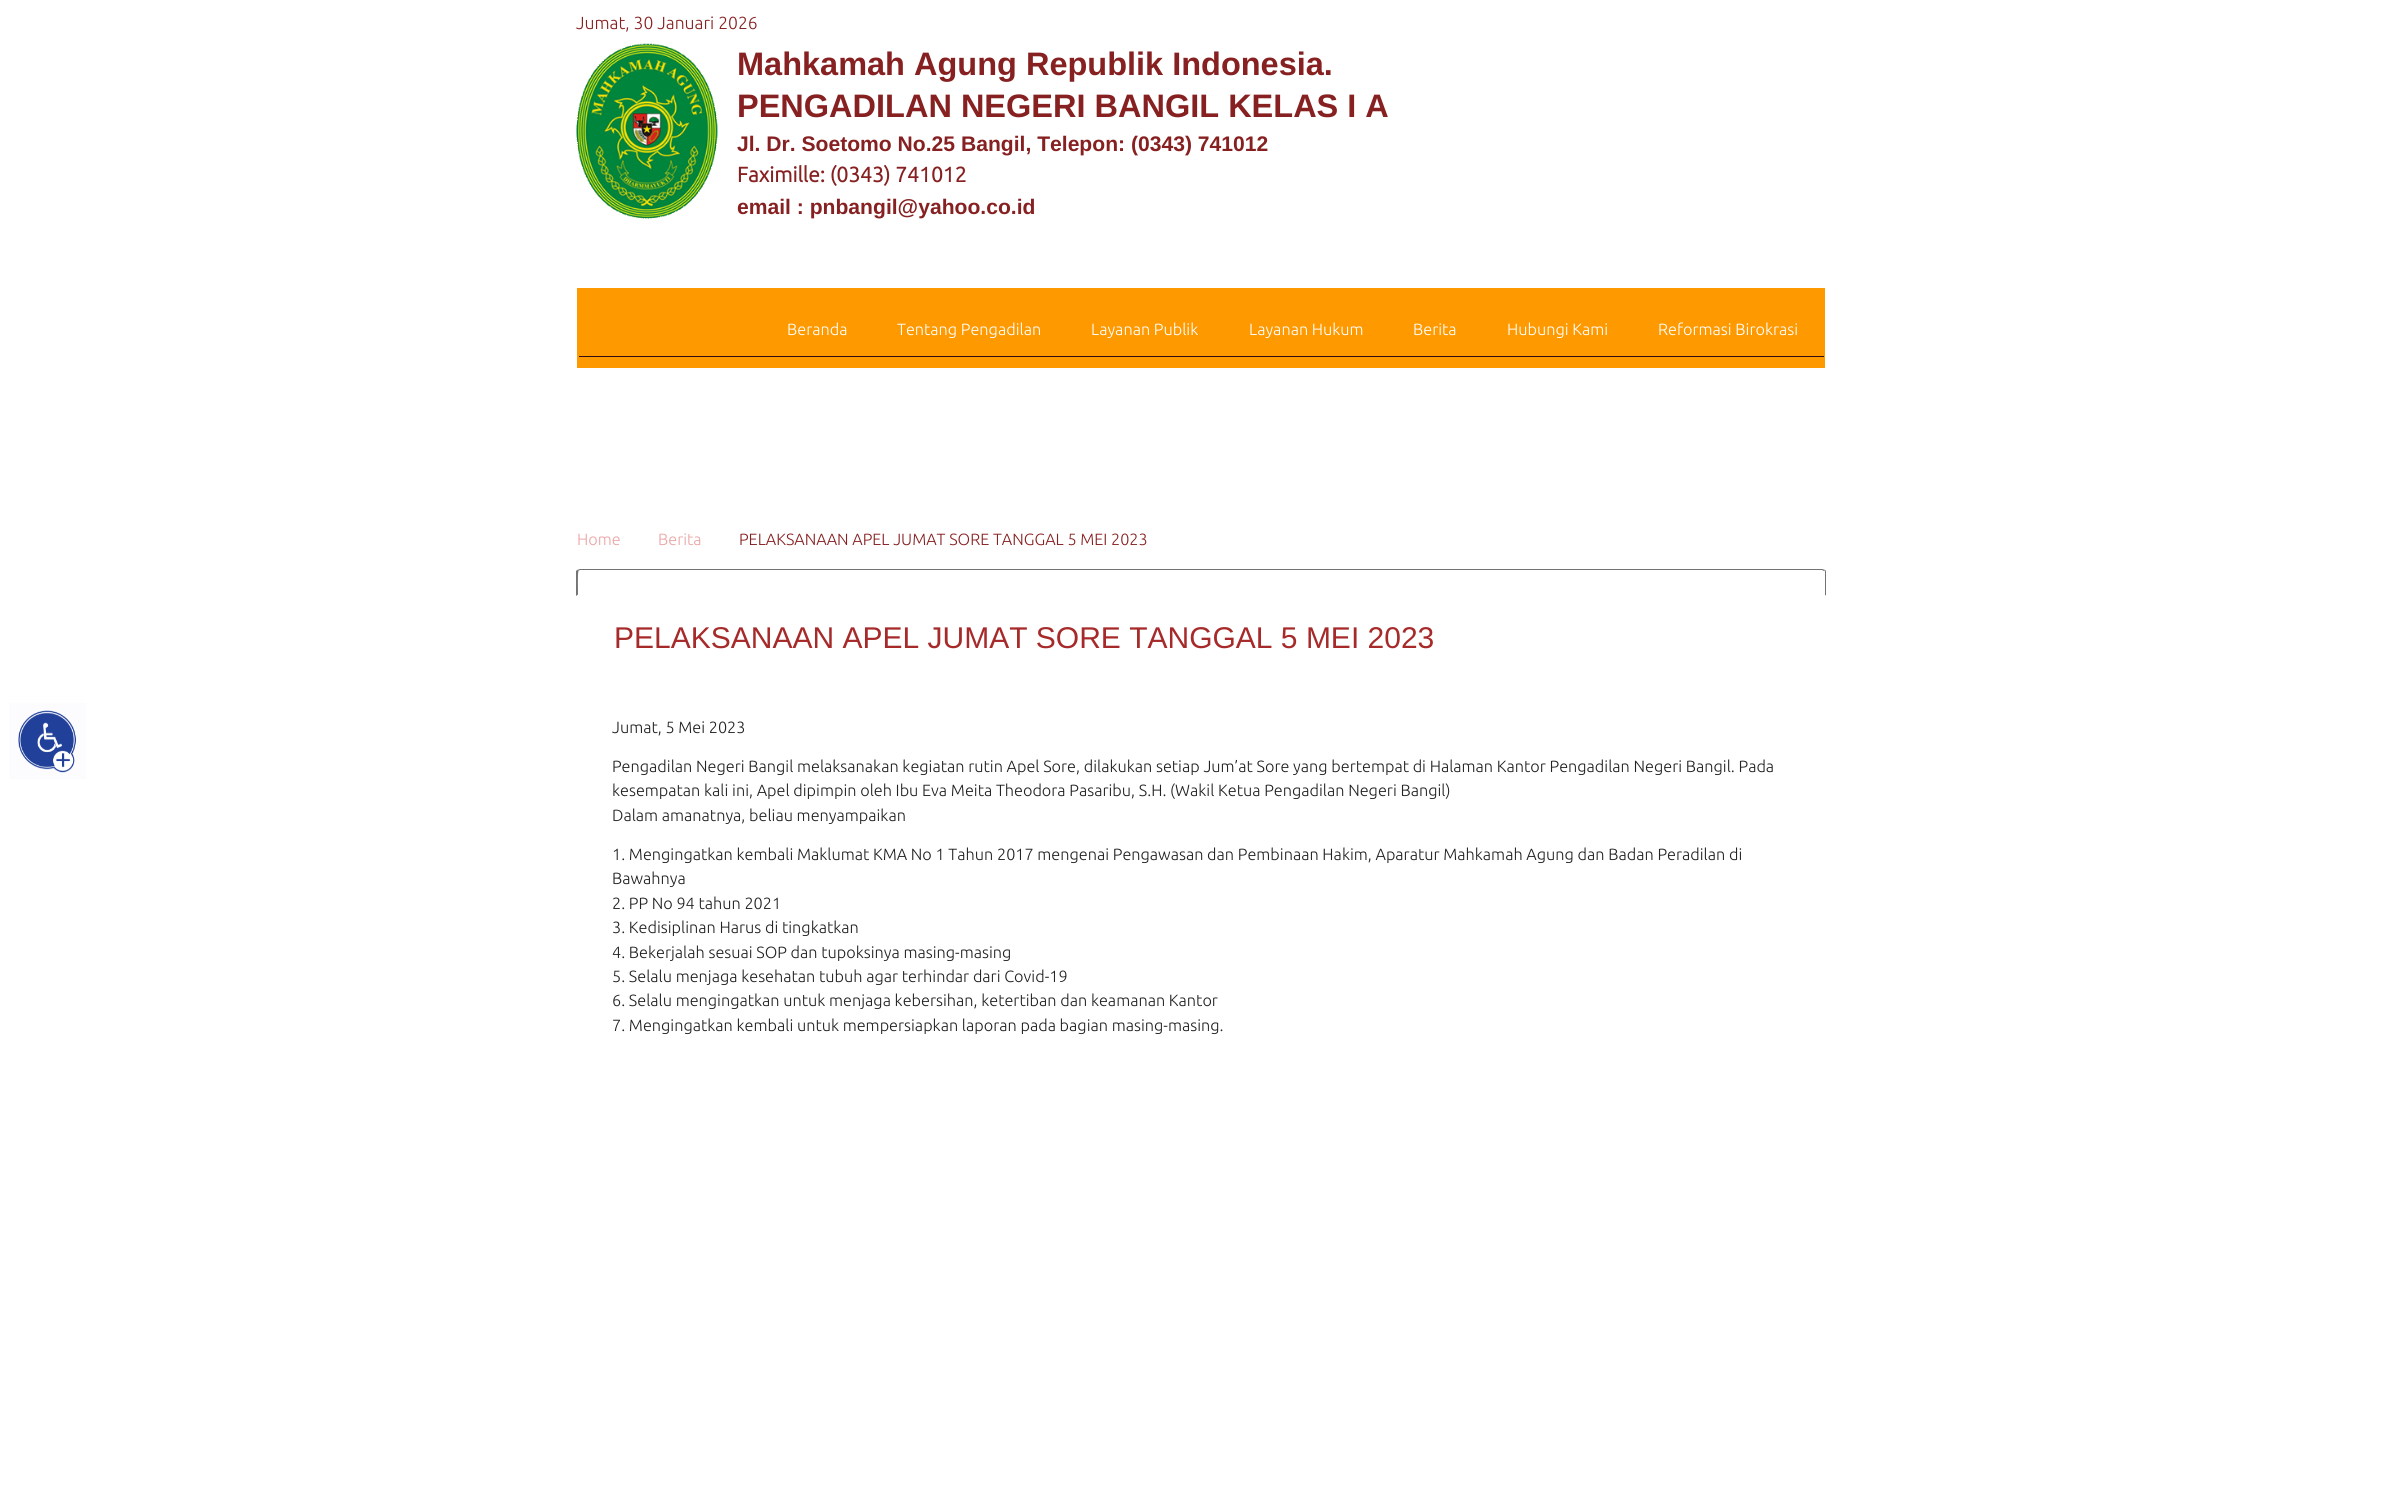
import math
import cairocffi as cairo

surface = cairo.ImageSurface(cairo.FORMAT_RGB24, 2401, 1488)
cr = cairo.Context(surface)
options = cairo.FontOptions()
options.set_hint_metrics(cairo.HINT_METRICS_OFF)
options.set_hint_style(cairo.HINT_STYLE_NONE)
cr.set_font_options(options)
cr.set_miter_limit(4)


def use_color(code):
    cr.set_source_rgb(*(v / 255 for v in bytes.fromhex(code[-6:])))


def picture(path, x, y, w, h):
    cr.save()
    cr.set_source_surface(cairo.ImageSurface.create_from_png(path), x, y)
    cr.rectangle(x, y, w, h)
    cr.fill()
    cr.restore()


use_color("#ffffff")
cr.paint()
use_color("#fcfcff")
cr.rectangle(9, 703, 77, 76)
cr.fill()
picture("img1.png", 18, 710, 58, 63)
cr.select_font_face("Ubuntu Light")
cr.set_font_size(17.5)
use_color("#872021")
cr.move_to(576, 29)
cr.show_text("Jumat, 30 Januari 2026")
picture("img2.png", 576, 43, 142, 176)
cr.select_font_face("Liberation Sans", cairo.FONT_SLANT_NORMAL, cairo.FONT_WEIGHT_BOLD)
cr.set_font_size(32.5)
cr.move_to(737, 75)
cr.show_text("Mahkamah Agung Republik Indonesia.")
cr.move_to(737, 117)
cr.show_text("PENGADILAN NEGERI BANGIL KELAS I A")
cr.set_font_size(21.1)
cr.move_to(737, 151)
cr.show_text("Jl. Dr. Soetomo No.25 Bangil, Telepon: (0343) 741012")
cr.select_font_face("Ubuntu", cairo.FONT_SLANT_NORMAL, cairo.FONT_WEIGHT_BOLD)
cr.move_to(737, 182)
cr.show_text("Faximille: (0343) 741012")
cr.select_font_face("Liberation Sans", cairo.FONT_SLANT_NORMAL, cairo.FONT_WEIGHT_BOLD)
cr.move_to(737, 214)
cr.show_text("email : pnbangil@yahoo.co.id")
use_color("#ff9900")
cr.rectangle(577, 288, 1248, 80)
cr.fill()
use_color("#300c0d")
cr.rectangle(579, 356, 1245, 1)
cr.fill()
cr.select_font_face("Ubuntu Light")
cr.set_font_size(16.25)
use_color("#ffffff")
cr.move_to(787, 335)
cr.show_text("Beranda")
cr.move_to(897, 335)
cr.show_text("Tentang Pengadilan")
cr.move_to(1091, 335)
cr.show_text("Layanan Publik")
cr.move_to(1249, 335)
cr.show_text("Layanan Hukum")
cr.move_to(1413, 335)
cr.show_text("Berita")
cr.move_to(1507, 335)
cr.show_text("Hubungi Kami")
cr.move_to(1658, 335)
cr.show_text("Reformasi Birokrasi")
use_color("#eba5a5")
cr.move_to(577, 545)
cr.show_text("Home")
cr.move_to(658, 545)
cr.show_text("Berita")
use_color("#872021")
cr.move_to(739, 545)
cr.show_text("PELAKSANAAN APEL JUMAT SORE TANGGAL 5 MEI 2023")
use_color("#737373")
cr.new_path()
cr.move_to(580, 569)
cr.line_to(577, 570)
cr.line_to(578, 571)
cr.line_to(580, 570)
cr.line_to(1822, 570)
cr.line_to(1824, 571)
cr.line_to(1825, 570)
cr.line_to(1822, 569)
cr.close_path()
cr.fill()
cr.new_path()
cr.move_to(1826, 596)
cr.line_to(1826, 572)
cr.curve_to(1826, 571, 1826, 570.5, 1825, 570)
cr.line_to(1824.5, 570.5)
cr.line_to(1825, 571.5)
cr.line_to(1825, 595)
cr.close_path()
cr.fill()
use_color("#fefefe")
cr.new_path()
cr.move_to(1826, 596)
cr.line_to(1825, 595)
cr.line_to(578, 595)
cr.line_to(578, 594)
cr.line_to(576, 596)
cr.close_path()
cr.fill()
use_color("#737373")
cr.new_path()
cr.move_to(576, 571)
cr.line_to(577, 570)
cr.line_to(578.5, 571)
cr.curve_to(577.5, 572, 578, 591.5, 578, 594.5)
cr.line_to(576, 596)
cr.close_path()
cr.fill()
cr.select_font_face("Liberation Sans")
cr.set_font_size(30)
use_color("#a72a2a")
cr.move_to(614, 648)
cr.show_text("PELAKSANAAN APEL JUMAT SORE TANGGAL 5 MEI 2023")
cr.select_font_face("Ubuntu Light")
cr.set_font_size(16.25)
use_color("#222222")
cr.move_to(612, 733)
cr.show_text("Jumat, 5 Mei 2023")
cr.move_to(612, 772)
cr.show_text("Pengadilan Negeri Bangil melaksanakan kegiatan rutin Apel Sore, dilakukan setiap Jum’at Sore yang bertempat di Halaman Kantor Pengadilan Negeri Bangil. Pada")
cr.move_to(612, 796)
cr.show_text("kesempatan kali ini, Apel dipimpin oleh Ibu Eva Meita Theodora Pasaribu, S.H. (Wakil Ketua Pengadilan Negeri Bangil)")
cr.move_to(612, 821)
cr.show_text("Dalam amanatnya, beliau menyampaikan")
cr.move_to(612, 860)
cr.show_text("1. Mengingatkan kembali Maklumat KMA No 1 Tahun 2017 mengenai Pengawasan dan Pembinaan Hakim, Aparatur Mahkamah Agung dan Badan Peradilan di")
cr.move_to(612, 884)
cr.show_text("Bawahnya")
cr.move_to(612, 909)
cr.show_text("2. PP No 94 tahun 2021")
cr.move_to(612, 933)
cr.show_text("3. Kedisiplinan Harus di tingkatkan")
cr.move_to(612, 958)
cr.show_text("4. Bekerjalah sesuai SOP dan tupoksinya masing-masing")
cr.move_to(612, 982)
cr.show_text("5. Selalu menjaga kesehatan tubuh agar terhindar dari Covid-19")
cr.move_to(612, 1006)
cr.show_text("6. Selalu mengingatkan untuk menjaga kebersihan, ketertiban dan keamanan Kantor")
cr.move_to(612, 1031)
cr.show_text("7. Mengingatkan kembali untuk mempersiapkan laporan pada bagian masing-masing.")
surface.write_to_png("result.png")
